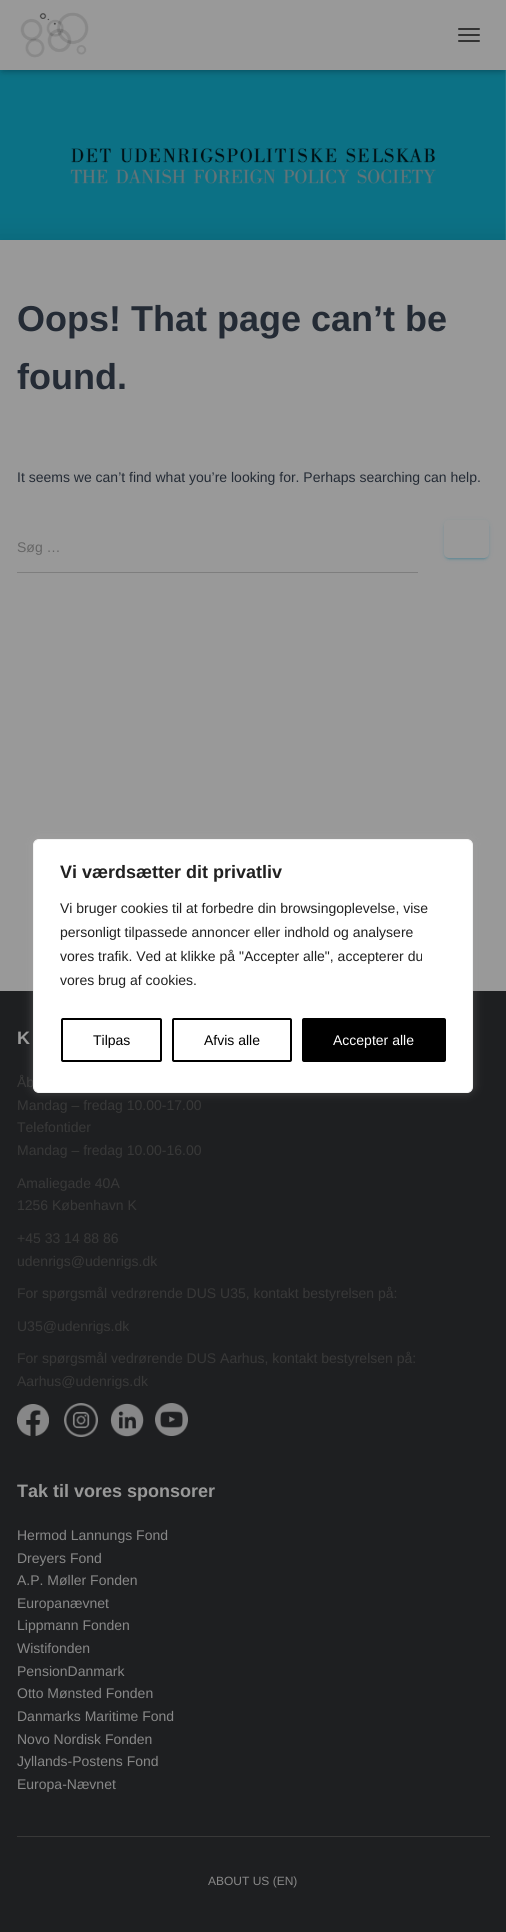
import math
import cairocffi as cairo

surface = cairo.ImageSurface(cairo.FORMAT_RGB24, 506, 1932)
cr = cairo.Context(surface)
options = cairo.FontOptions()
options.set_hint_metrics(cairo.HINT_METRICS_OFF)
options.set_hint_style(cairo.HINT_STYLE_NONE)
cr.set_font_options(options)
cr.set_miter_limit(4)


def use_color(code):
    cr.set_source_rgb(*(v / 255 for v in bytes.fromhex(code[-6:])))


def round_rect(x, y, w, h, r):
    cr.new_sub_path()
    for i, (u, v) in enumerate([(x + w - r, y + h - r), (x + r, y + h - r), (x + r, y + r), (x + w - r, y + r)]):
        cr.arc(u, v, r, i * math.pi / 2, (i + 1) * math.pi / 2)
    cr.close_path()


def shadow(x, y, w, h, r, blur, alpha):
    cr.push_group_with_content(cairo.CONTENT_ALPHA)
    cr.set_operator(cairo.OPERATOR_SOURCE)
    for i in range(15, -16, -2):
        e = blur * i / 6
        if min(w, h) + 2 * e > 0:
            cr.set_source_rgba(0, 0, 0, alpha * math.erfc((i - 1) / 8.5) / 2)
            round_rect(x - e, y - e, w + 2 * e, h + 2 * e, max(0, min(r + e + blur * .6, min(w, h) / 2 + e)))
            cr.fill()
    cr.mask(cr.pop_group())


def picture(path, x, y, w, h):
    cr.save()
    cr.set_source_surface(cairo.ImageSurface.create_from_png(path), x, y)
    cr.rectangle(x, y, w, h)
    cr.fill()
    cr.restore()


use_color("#ffffff")
cr.paint()
picture("img2.png", 0, 70, 506, 170)
use_color("#000000")
shadow(2, 6, 502, 66, 0, 2.5, 0.1)
shadow(0, 1, 506, 70, 0, 5, 0.12)
shadow(6, 7, 494, 58, 0, 5, 0.42)
use_color("#999999")
cr.rectangle(0, 0, 506, 70)
cr.fill()
picture("img1.png", 20, 12, 69, 46)
use_color("#333333")
round_rect(458, 28, 22, 2, 1)
cr.fill()
round_rect(458, 34, 22, 2, 1)
cr.fill()
round_rect(458, 40, 22, 2, 1)
cr.fill()
use_color("#000000")
shadow(-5, 241, 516, 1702, 0, 15, 0.12)
use_color("#999999")
cr.rectangle(0, 240, 506, 751)
cr.fill()
cr.select_font_face("Liberation Sans", cairo.FONT_SLANT_NORMAL, cairo.FONT_WEIGHT_BOLD)
cr.set_font_size(36)
use_color("#242b35")
cr.move_to(17, 331)
cr.show_text("Oops! That page can’t be")
cr.move_to(17, 389)
cr.show_text("found.")
cr.select_font_face("Liberation Sans")
cr.set_font_size(14)
cr.move_to(17, 482)
cr.show_text("It seems we can’t find what you’re looking for. Perhaps searching can help.")
use_color("#666666")
cr.move_to(17, 552)
cr.show_text("Søg …")
use_color("#7e7e7e")
cr.rectangle(17, 572, 401, 1)
cr.fill()
use_color("#13738f")
shadow(444, 521, 45, 38, 5, 2.5, 0.12)
shadow(446, 525, 41, 34, 3, 0.5, 0.2)
shadow(444, 522, 45, 38, 5, 1, 0.14)
use_color("#999999")
round_rect(444, 520, 45, 38, 5)
cr.fill()
use_color("#1e1f21")
cr.rectangle(0, 991, 506, 941)
cr.fill()
cr.select_font_face("Liberation Sans", cairo.FONT_SLANT_NORMAL, cairo.FONT_WEIGHT_BOLD)
cr.set_font_size(18)
use_color("#999999")
cr.move_to(17, 1044)
cr.show_text("K")
cr.select_font_face("Liberation Sans")
cr.set_font_size(14)
use_color("#383838")
cr.move_to(17, 1087)
cr.show_text("Åb")
cr.move_to(17, 1110)
cr.show_text("Mandag – fredag 10.00-17.00")
cr.move_to(17, 1132)
cr.show_text("Telefontider")
cr.move_to(17, 1155)
cr.show_text("Mandag – fredag 10.00-16.00")
cr.move_to(17, 1188)
cr.show_text("Amaliegade 40A")
cr.move_to(17, 1210)
cr.show_text("1256 København K")
cr.move_to(17, 1243)
cr.show_text("+45 33 14 88 86")
cr.move_to(17, 1266)
cr.show_text("udenrigs@udenrigs.dk")
cr.move_to(17, 1298)
cr.show_text("For spørgsmål vedrørende DUS U35, kontakt bestyrelsen på:")
cr.move_to(17, 1331)
cr.show_text("U35@udenrigs.dk")
cr.move_to(17, 1363)
cr.show_text("For spørgsmål vedrørende DUS Aarhus, kontakt bestyrelsen på:")
cr.move_to(17, 1386)
cr.show_text("Aarhus@udenrigs.dk")
picture("img3.png", 17, 1404, 32, 32)
picture("img4.png", 64, 1403, 34, 34)
picture("img5.png", 110, 1403, 34, 34)
picture("img6.png", 155, 1403, 33, 33)
cr.select_font_face("Liberation Sans", cairo.FONT_SLANT_NORMAL, cairo.FONT_WEIGHT_BOLD)
cr.set_font_size(18)
use_color("#999999")
cr.move_to(17, 1497)
cr.show_text("Tak til vores sponsorer")
cr.select_font_face("Liberation Sans")
cr.set_font_size(14)
use_color("#888888")
cr.move_to(17, 1540)
cr.show_text("Hermod Lannungs Fond")
cr.move_to(17, 1563)
cr.show_text("Dreyers Fond")
cr.move_to(17, 1585)
cr.show_text("A.P. Møller Fonden")
cr.move_to(17, 1608)
cr.show_text("Europanævnet")
cr.move_to(17, 1630)
cr.show_text("Lippmann Fonden")
cr.move_to(17, 1653)
cr.show_text("Wistifonden")
cr.move_to(17, 1676)
cr.show_text("PensionDanmark")
cr.move_to(17, 1698)
cr.show_text("Otto Mønsted Fonden")
cr.move_to(17, 1721)
cr.show_text("Danmarks Maritime Fond")
cr.move_to(17, 1744)
cr.show_text("Novo Nordisk Fonden")
cr.move_to(17, 1766)
cr.show_text("Jyllands-Postens Fond")
cr.move_to(17, 1789)
cr.show_text("Europa-Nævnet")
use_color("#383838")
cr.rectangle(17, 1836, 473, 1)
cr.fill()
cr.set_font_size(12)
use_color("#888888")
cr.move_to(208, 1885)
cr.show_text("ABOUT US (EN)")
use_color("#acabab")
shadow(33, 838, 440, 254, 6, 5, 0.3)
use_color("#ffffff")
round_rect(33.5, 839.5, 439, 253, 5.5)
cr.fill_preserve()
use_color("#f4f4f4")
cr.set_line_width(1)
cr.stroke()
cr.select_font_face("Liberation Sans", cairo.FONT_SLANT_NORMAL, cairo.FONT_WEIGHT_BOLD)
cr.set_font_size(18)
use_color("#212121")
cr.move_to(60, 878)
cr.show_text("Vi værdsætter dit privatliv")
cr.select_font_face("Liberation Sans")
cr.set_font_size(14)
cr.move_to(60, 913)
cr.show_text("Vi bruger cookies til at forbedre din browsingoplevelse, vise")
cr.move_to(60, 937)
cr.show_text("personligt tilpassede annoncer eller indhold og analysere")
cr.move_to(60, 961)
cr.show_text("vores trafik. Ved at klikke på \"Accepter alle\", accepterer du")
cr.move_to(60, 985)
cr.show_text("vores brug af cookies.")
round_rect(62, 1019, 99, 42, 1)
use_color("#000000")
cr.set_line_width(2)
cr.stroke()
cr.move_to(93, 1045)
cr.show_text("Tilpas")
round_rect(173, 1019, 118, 42, 1)
cr.stroke()
cr.move_to(204, 1045)
cr.show_text("Afvis alle")
round_rect(303, 1019, 142, 42, 1)
cr.fill_preserve()
cr.stroke()
use_color("#ffffff")
cr.move_to(333, 1045)
cr.show_text("Accepter alle")
surface.write_to_png("result.png")
